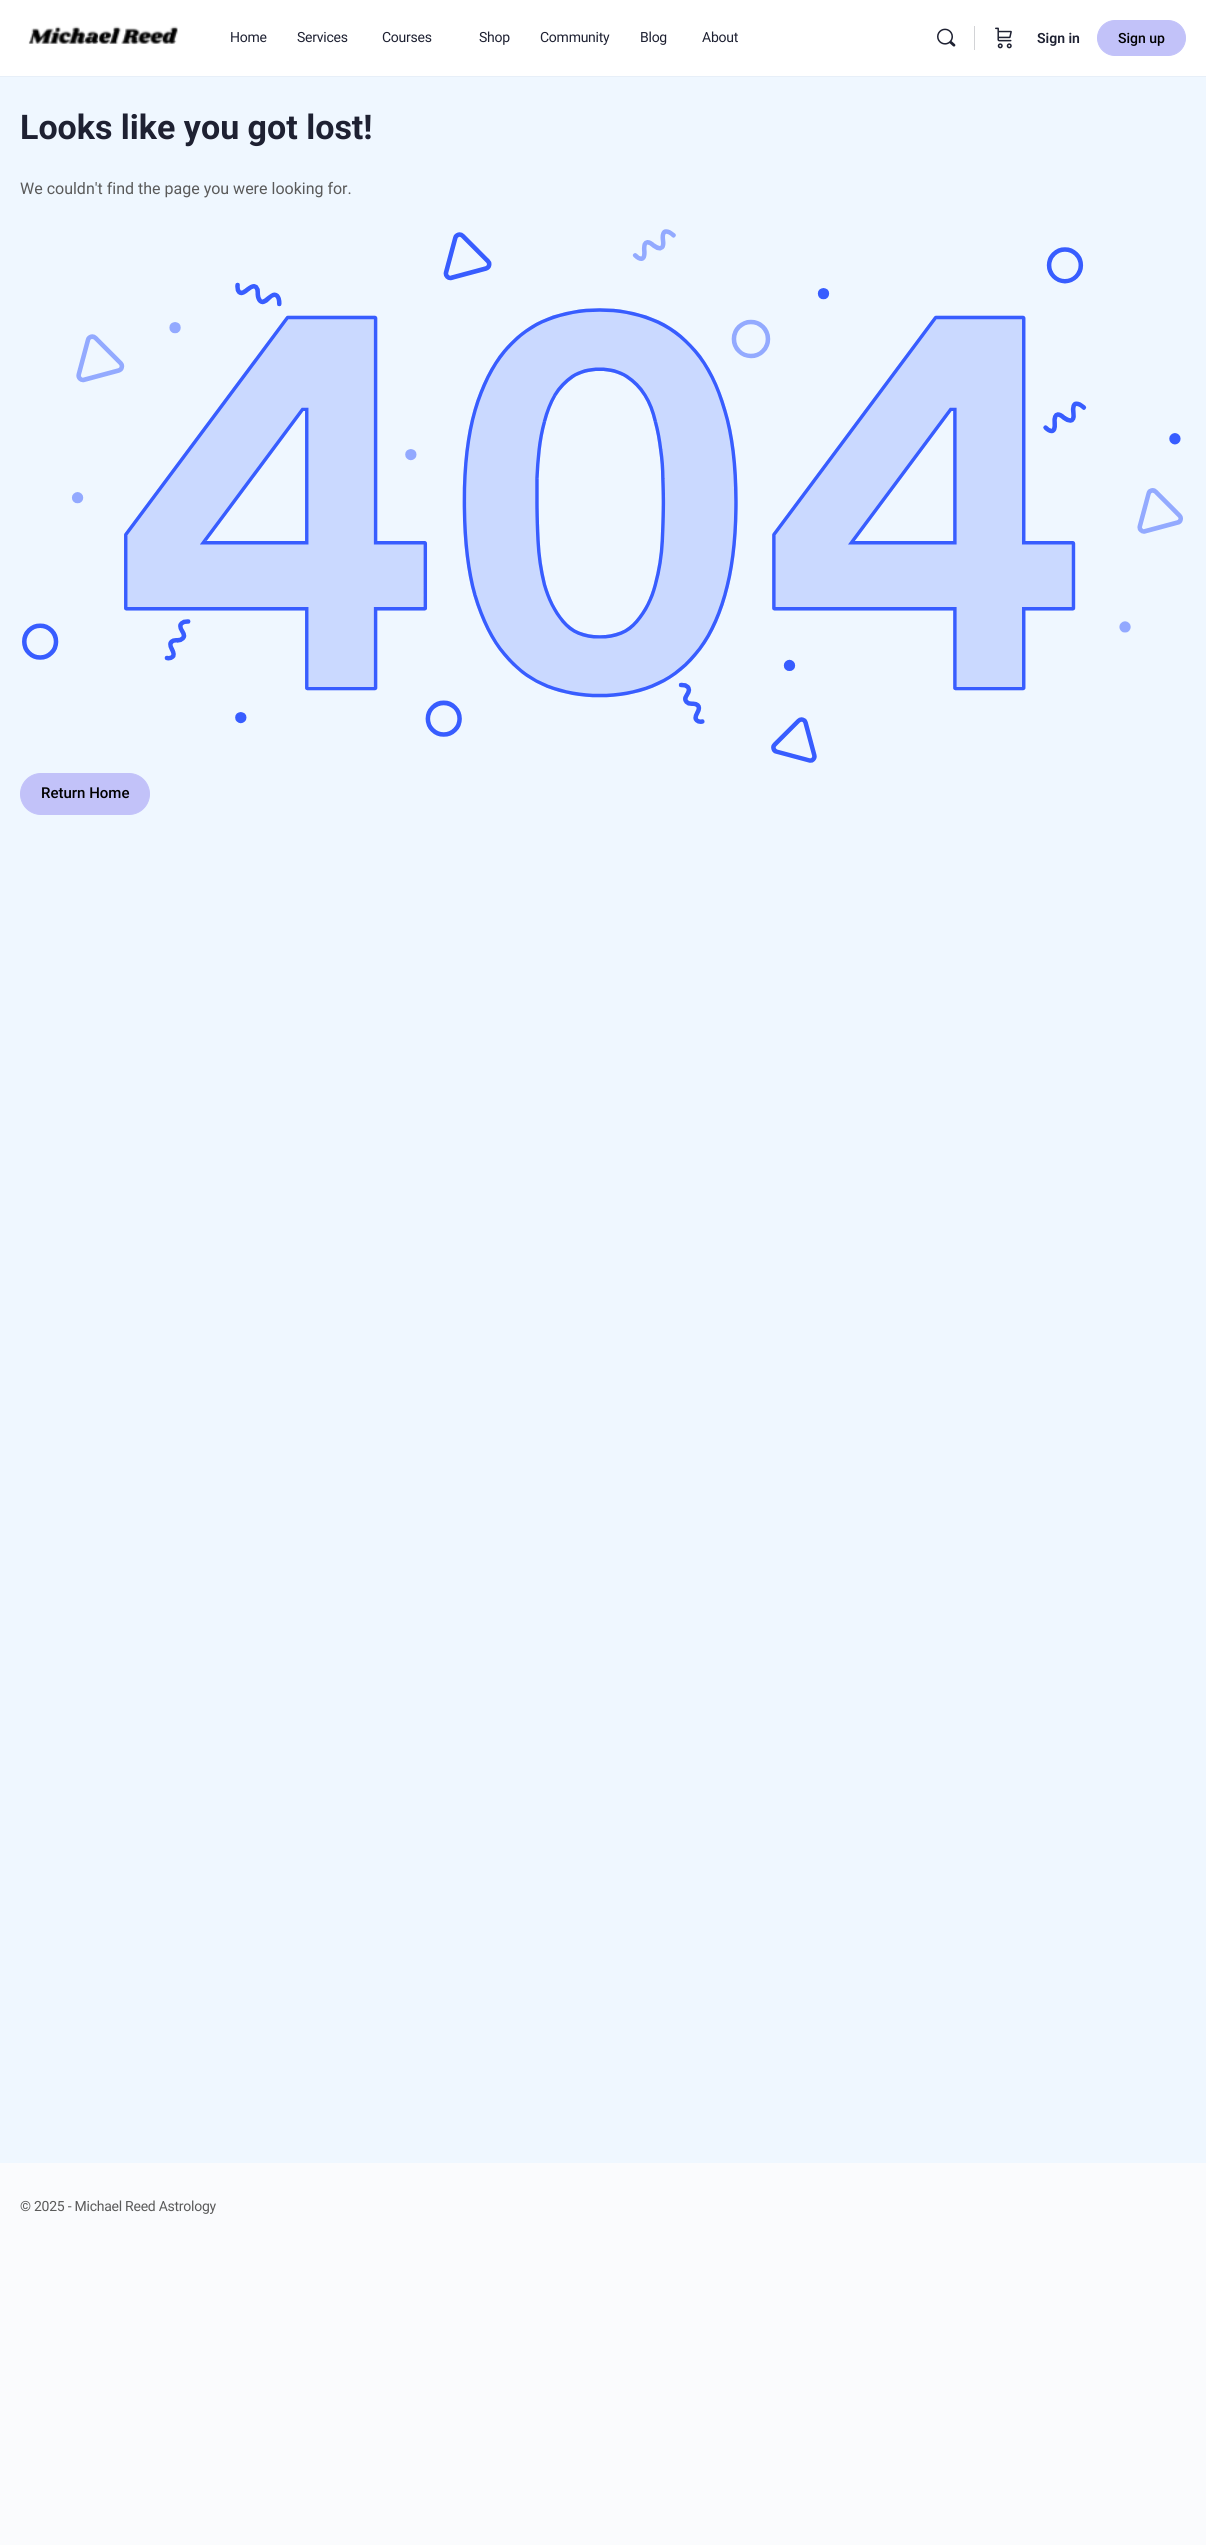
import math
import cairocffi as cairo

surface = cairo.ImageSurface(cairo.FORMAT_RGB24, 1206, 2545)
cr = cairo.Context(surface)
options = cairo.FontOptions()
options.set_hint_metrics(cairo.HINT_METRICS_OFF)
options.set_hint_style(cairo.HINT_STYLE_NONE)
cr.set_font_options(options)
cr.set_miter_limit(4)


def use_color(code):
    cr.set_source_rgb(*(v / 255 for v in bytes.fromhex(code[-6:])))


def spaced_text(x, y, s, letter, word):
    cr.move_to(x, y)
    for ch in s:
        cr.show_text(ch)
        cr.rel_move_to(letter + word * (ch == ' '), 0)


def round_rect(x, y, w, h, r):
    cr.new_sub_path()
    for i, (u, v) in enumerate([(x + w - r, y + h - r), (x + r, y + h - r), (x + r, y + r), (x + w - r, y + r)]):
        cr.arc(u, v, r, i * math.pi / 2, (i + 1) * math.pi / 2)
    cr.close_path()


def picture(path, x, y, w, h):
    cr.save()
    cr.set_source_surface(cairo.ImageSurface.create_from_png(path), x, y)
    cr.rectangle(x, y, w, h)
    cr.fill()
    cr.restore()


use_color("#eff7ff")
cr.paint()
use_color("#e7eff8")
cr.rectangle(0, 76, 1206, 1)
cr.fill()
use_color("#ffffff")
cr.rectangle(0, 0, 1206, 76)
cr.fill()
picture("img1.png", 28, 26, 150, 19)
cr.select_font_face("Roboto")
cr.set_font_size(14)
use_color("#1e2132")
spaced_text(230, 42, "Home", -0.25, 0)
spaced_text(297, 42, "Services", -0.25, 0)
spaced_text(382, 42, "Courses", -0.25, 0)
spaced_text(479, 42, "Shop", -0.25, 0)
spaced_text(540, 42, "Community", -0.25, 0)
spaced_text(640, 42, "Blog", -0.25, 0)
spaced_text(702, 42, "About", -0.25, 0)
picture("img2.png", 937, 28, 19, 19)
use_color("#d2d3d6")
cr.rectangle(974, 26, 1, 24)
cr.fill()
picture("img3.png", 995, 27, 17, 22)
cr.select_font_face("Roboto SemiBold")
use_color("#1e2132")
cr.move_to(1037, 43)
cr.show_text("Sign in")
use_color("#c2c2f9")
round_rect(1097.5, 20.5, 88, 35, 17.5)
cr.fill_preserve()
cr.set_line_width(1)
cr.stroke()
cr.select_font_face("Roboto Medium")
use_color("#000000")
cr.move_to(1118, 43)
cr.show_text("Sign up")
cr.select_font_face("Roboto", cairo.FONT_SLANT_NORMAL, cairo.FONT_WEIGHT_BOLD)
cr.set_font_size(34)
use_color("#1e2132")
cr.move_to(20, 139)
cr.show_text("Looks like you got lost!")
cr.select_font_face("Roboto")
cr.set_font_size(16)
use_color("#5a5a5a")
cr.move_to(20, 194)
cr.show_text("We couldn't find the page you were looking for.")
picture("img4.png", 22, 229, 1161, 534)
use_color("#c2c2f9")
round_rect(20.5, 773.5, 129, 41, 20.5)
cr.fill_preserve()
cr.stroke()
cr.select_font_face("Roboto Medium")
cr.set_font_size(15)
use_color("#000000")
cr.move_to(41, 798)
cr.show_text("Return Home")
use_color("#fafbfd")
cr.rectangle(0, 2163, 1206, 382)
cr.fill()
cr.select_font_face("Roboto")
cr.set_font_size(14)
use_color("#5a5a5a")
spaced_text(20, 2211, "© 2025 - Michael Reed Astrology", -0.25, 0)
surface.write_to_png("result.png")
